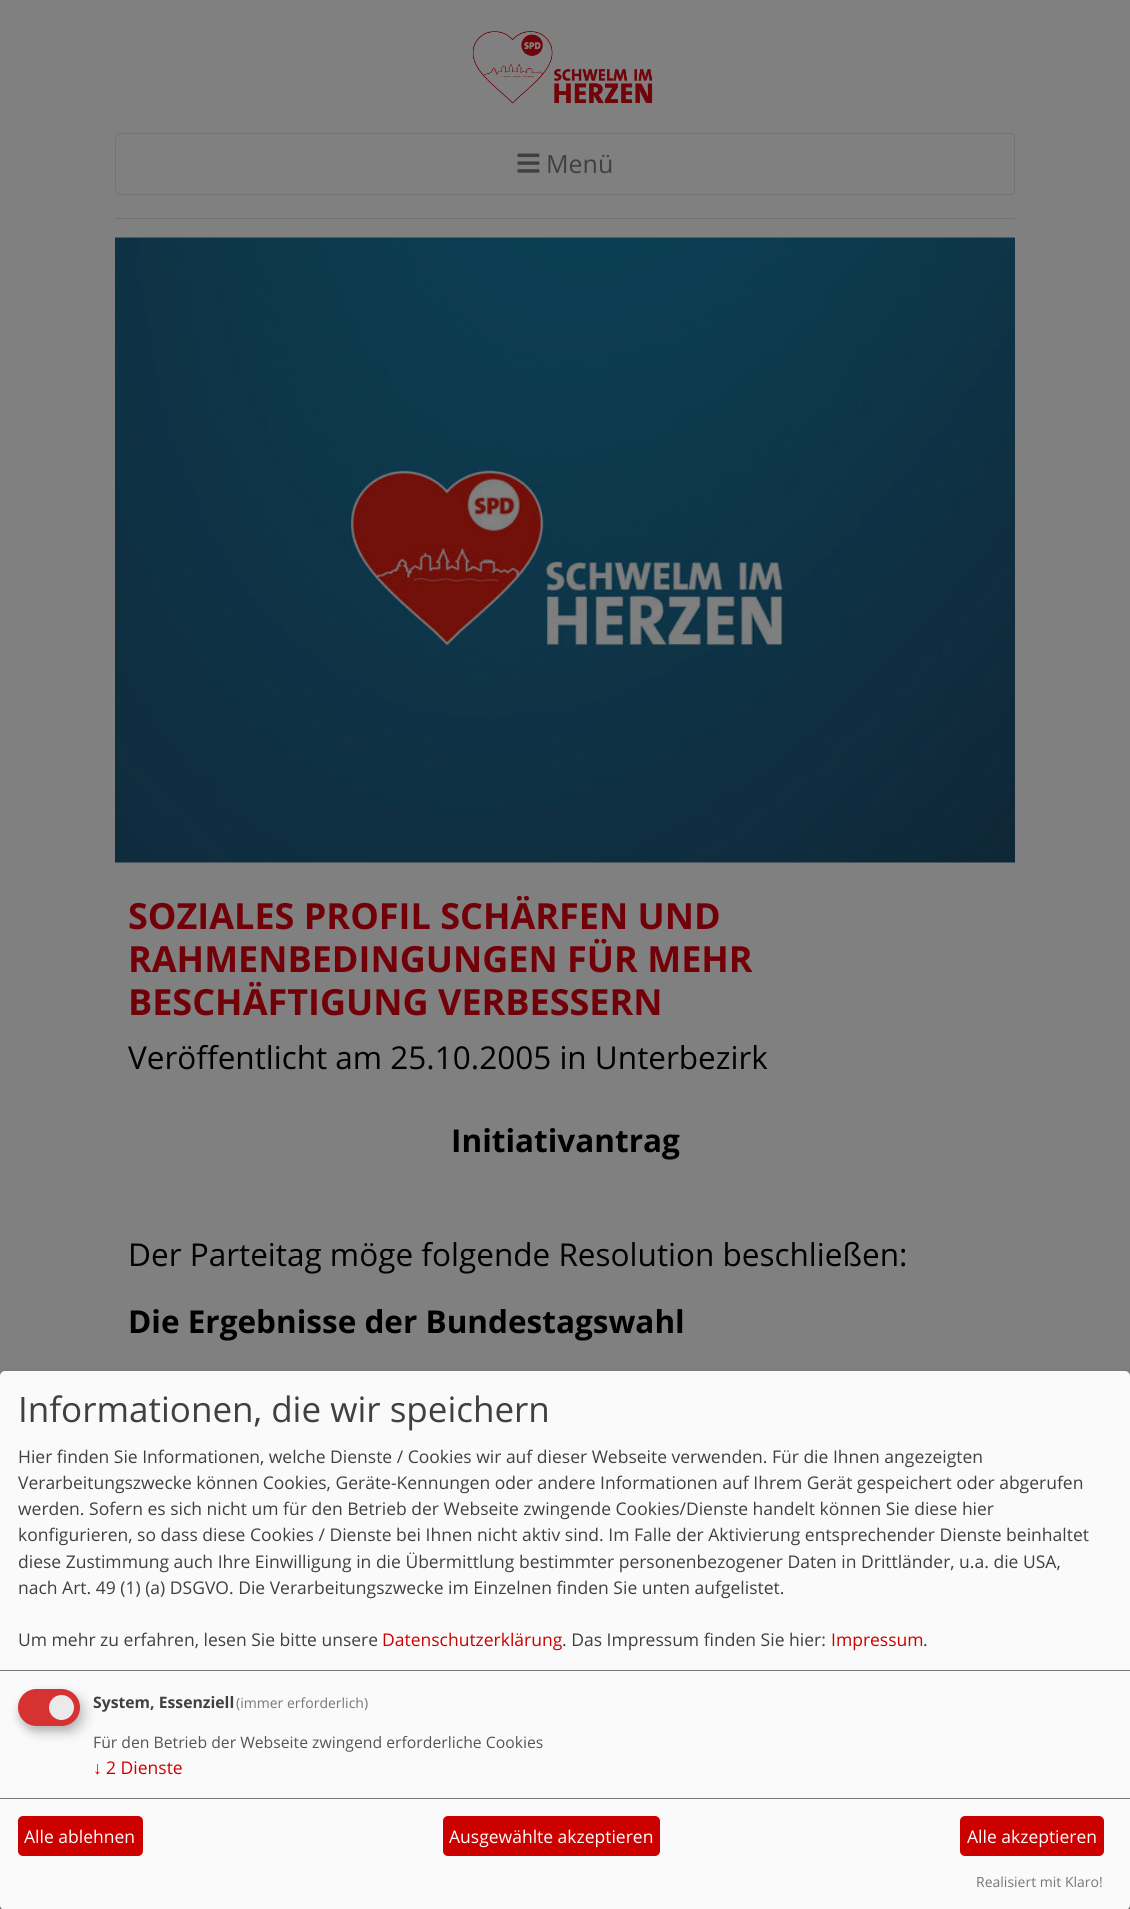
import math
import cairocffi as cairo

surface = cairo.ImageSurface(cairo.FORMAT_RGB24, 1130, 1909)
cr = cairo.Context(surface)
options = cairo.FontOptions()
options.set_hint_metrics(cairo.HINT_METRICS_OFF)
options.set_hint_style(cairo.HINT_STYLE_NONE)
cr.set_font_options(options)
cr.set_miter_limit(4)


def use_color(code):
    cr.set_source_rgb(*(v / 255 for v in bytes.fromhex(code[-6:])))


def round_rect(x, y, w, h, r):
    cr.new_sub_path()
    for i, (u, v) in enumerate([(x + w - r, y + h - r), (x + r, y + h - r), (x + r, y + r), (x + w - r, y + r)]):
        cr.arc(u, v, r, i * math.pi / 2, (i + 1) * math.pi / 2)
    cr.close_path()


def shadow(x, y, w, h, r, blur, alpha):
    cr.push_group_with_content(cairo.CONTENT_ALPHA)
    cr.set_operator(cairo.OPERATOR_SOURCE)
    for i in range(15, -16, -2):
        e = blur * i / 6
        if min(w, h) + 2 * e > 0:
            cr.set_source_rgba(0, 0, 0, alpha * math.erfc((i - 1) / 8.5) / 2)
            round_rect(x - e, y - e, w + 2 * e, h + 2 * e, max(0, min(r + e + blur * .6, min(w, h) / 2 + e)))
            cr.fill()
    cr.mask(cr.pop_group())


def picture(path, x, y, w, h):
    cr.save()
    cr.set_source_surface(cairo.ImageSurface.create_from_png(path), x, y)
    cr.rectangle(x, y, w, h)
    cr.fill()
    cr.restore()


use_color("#808080")
cr.paint()
use_color("#6f7173")
cr.rectangle(115, 218, 900, 1)
cr.fill()
picture("img1.png", 472, 31, 181, 73)
round_rect(115.5, 133.5, 899, 61, 4.5)
use_color("#737373")
cr.set_line_width(1)
cr.stroke()
picture("img2.png", 517, 153, 23, 20)
cr.select_font_face("Open Sans")
cr.set_font_size(25)
use_color("#404040")
cr.move_to(546, 173)
cr.show_text("Menü")
picture("img3.png", 115, 237, 900, 626)
cr.select_font_face("Open Sans", cairo.FONT_SLANT_NORMAL, cairo.FONT_WEIGHT_BOLD)
cr.set_font_size(36)
use_color("#720008")
cr.move_to(128, 929)
cr.show_text("SOZIALES PROFIL SCHÄRFEN UND")
cr.move_to(128, 972)
cr.show_text("RAHMENBEDINGUNGEN FÜR MEHR")
cr.move_to(128, 1015)
cr.show_text("BESCHÄFTIGUNG VERBESSERN")
cr.select_font_face("Open Sans")
cr.set_font_size(31.5)
use_color("#000000")
cr.move_to(128, 1069)
cr.show_text("Veröffentlicht am 25.10.2005 in Unterbezirk")
cr.select_font_face("Open Sans", cairo.FONT_SLANT_NORMAL, cairo.FONT_WEIGHT_BOLD)
cr.move_to(451, 1152)
cr.show_text("Initiativantrag")
cr.select_font_face("Open Sans")
cr.move_to(128, 1266)
cr.show_text("Der Parteitag möge folgende Resolution beschließen:")
cr.select_font_face("Open Sans", cairo.FONT_SLANT_NORMAL, cairo.FONT_WEIGHT_BOLD)
cr.move_to(128, 1333)
cr.show_text("Die Ergebnisse der Bundestagswahl")
use_color("#000000")
shadow(6, 1378, 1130, 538, 5, 6, 0.19)
shadow(0, 1376, 1130, 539, 5, 4, 0.2)
use_color("#fafafa")
round_rect(0, 1371, 1130, 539, 5)
cr.fill()
use_color("#777777")
cr.rectangle(0, 1670, 1130, 1)
cr.fill()
cr.select_font_face("Open Sans")
cr.set_font_size(35)
use_color("#404040")
cr.move_to(18, 1422)
cr.show_text("Informationen, die wir speichern")
cr.set_font_size(17.5)
cr.move_to(18, 1463)
cr.show_text("Hier finden Sie Informationen, welche Dienste / Cookies wir auf dieser Webseite verwenden. Für die Ihnen angezeigten")
cr.move_to(18, 1489)
cr.show_text("Verarbeitungszwecke können Cookies, Geräte-Kennungen oder andere Informationen auf Ihrem Gerät gespeichert oder abgerufen")
cr.move_to(18, 1515)
cr.show_text("werden. Sofern es sich nicht um für den Betrieb der Webseite zwingende Cookies/Dienste handelt können Sie diese hier")
cr.move_to(18, 1541)
cr.show_text("konfigurieren, so dass diese Cookies / Dienste bei Ihnen nicht aktiv sind. Im Falle der Aktivierung entsprechender Dienste beinhaltet")
cr.move_to(18, 1568)
cr.show_text("diese Zustimmung auch Ihre Einwilligung in die Übermittlung bestimmter personenbezogener Daten in Drittländer, u.a. die USA,")
cr.move_to(18, 1594)
cr.show_text("nach Art. 49 (1) (a) DSGVO. Die Verarbeitungszwecke im Einzelnen finden Sie unten aufgelistet.")
cr.move_to(18, 1646)
cr.show_text("Um mehr zu erfahren, lesen Sie bitte unsere")
use_color("#cd0000")
cr.move_to(382, 1646)
cr.show_text("Datenschutzerklärung")
use_color("#404040")
cr.move_to(562, 1646)
cr.show_text(". Das Impressum finden Sie hier:")
use_color("#cd0000")
cr.move_to(831, 1646)
cr.show_text("Impressum")
use_color("#404040")
cr.move_to(923, 1646)
cr.show_text(".")
use_color("#000000")
shadow(24, 1695, 62, 38, 19, 6, 0.15)
use_color("#323232")
shadow(18, 1694, 62, 37, 18.5, 4, 0.2)
use_color("#d63232")
round_rect(18, 1689, 62, 37, 18.5)
cr.fill()
use_color("#eaeaea")
cr.arc(61.5, 1707.5, 12.5, 0, 2 * math.pi)
cr.fill()
cr.select_font_face("Open Sans", cairo.FONT_SLANT_NORMAL, cairo.FONT_WEIGHT_BOLD)
cr.set_font_size(15.75)
use_color("#404040")
cr.move_to(93, 1708)
cr.show_text("System, Essenziell")
cr.select_font_face("Open Sans")
cr.set_font_size(14)
use_color("#777777")
cr.move_to(236, 1708)
cr.show_text("(immer erforderlich)")
cr.set_font_size(15.75)
use_color("#555555")
cr.move_to(93, 1748)
cr.show_text("Für den Betrieb der Webseite zwingend erforderliche Cookies")
cr.select_font_face("Liberation Sans")
cr.set_font_size(17.5)
use_color("#cd0000")
cr.move_to(93, 1774)
cr.show_text("↓")
cr.select_font_face("Open Sans")
cr.move_to(106, 1774)
cr.show_text("2 Dienste")
use_color("#777777")
cr.rectangle(0, 1798, 1130, 1)
cr.fill()
use_color("#cd0000")
round_rect(18, 1816, 125, 40, 5)
cr.fill()
use_color("#ffffff")
cr.move_to(24, 1843)
cr.show_text("Alle ablehnen")
use_color("#cd0000")
round_rect(443, 1816, 217, 40, 5)
cr.fill()
use_color("#ffffff")
cr.move_to(449, 1843)
cr.show_text("Ausgewählte akzeptieren")
use_color("#cd0000")
round_rect(960, 1816, 144, 40, 5)
cr.fill()
use_color("#ffffff")
cr.move_to(967, 1843)
cr.show_text("Alle akzeptieren")
cr.set_font_size(14)
use_color("#777777")
cr.move_to(976, 1887)
cr.show_text("Realisiert mit Klaro!")
surface.write_to_png("result.png")
